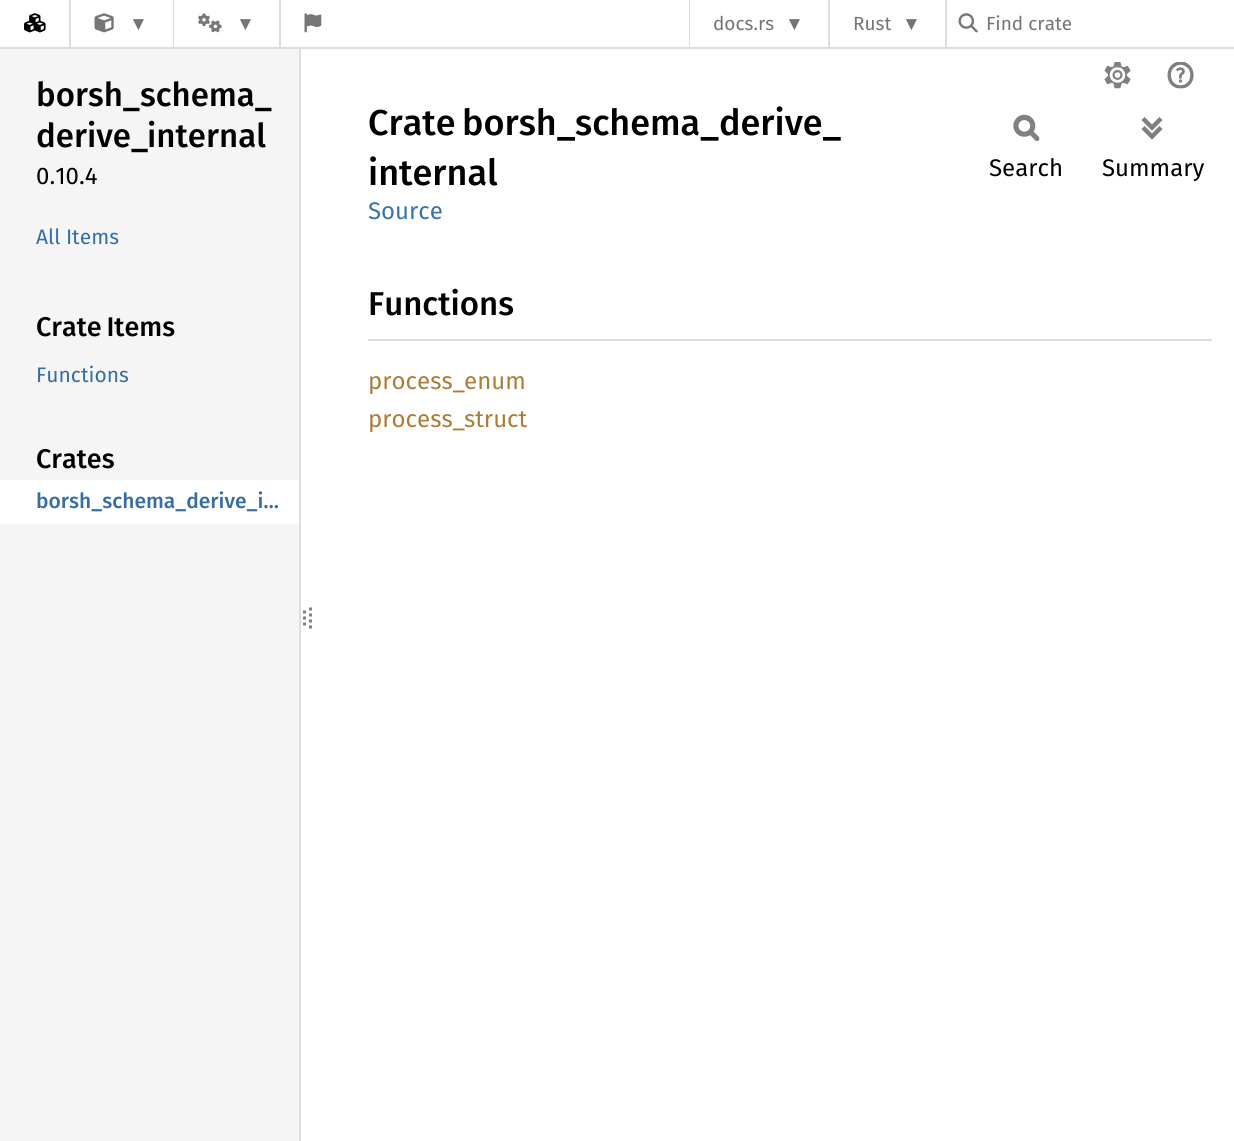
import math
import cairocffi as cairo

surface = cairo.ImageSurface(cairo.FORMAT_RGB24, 1234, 1141)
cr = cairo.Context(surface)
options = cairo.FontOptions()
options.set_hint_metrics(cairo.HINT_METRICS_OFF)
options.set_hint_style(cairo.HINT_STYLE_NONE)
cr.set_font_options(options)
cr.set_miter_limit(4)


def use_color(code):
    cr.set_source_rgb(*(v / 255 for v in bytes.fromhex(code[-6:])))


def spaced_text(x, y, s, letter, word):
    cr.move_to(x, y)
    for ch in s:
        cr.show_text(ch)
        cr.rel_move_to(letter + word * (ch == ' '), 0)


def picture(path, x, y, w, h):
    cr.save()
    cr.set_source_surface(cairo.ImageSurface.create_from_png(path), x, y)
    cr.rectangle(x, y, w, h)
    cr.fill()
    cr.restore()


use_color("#ffffff")
cr.paint()
use_color("#dddddd")
cr.rectangle(299, 48, 2, 1093)
cr.fill()
cr.rectangle(0, 47, 1234, 2)
cr.fill()
picture("img1.png", 24, 13, 22, 20)
cr.rectangle(69, 0, 2, 47)
cr.fill()
picture("img2.png", 94, 13, 20, 20)
cr.select_font_face("Liberation Sans")
cr.set_font_size(19)
use_color("#757575")
cr.move_to(129, 30)
cr.show_text("▼")
use_color("#dddddd")
cr.rectangle(173, 0, 1, 47)
cr.fill()
picture("img3.png", 198, 13, 24, 20)
use_color("#757575")
cr.move_to(236, 30)
cr.show_text("▼")
use_color("#dddddd")
cr.rectangle(279, 0, 2, 47)
cr.fill()
picture("img4.png", 304, 13, 18, 20)
cr.rectangle(689, 0, 1, 47)
cr.fill()
cr.select_font_face("Fira Sans")
use_color("#757575")
cr.move_to(713, 30)
cr.show_text("docs.rs")
cr.select_font_face("Liberation Sans")
cr.move_to(785, 30)
cr.show_text("▼")
use_color("#dddddd")
cr.rectangle(828, 0, 2, 47)
cr.fill()
cr.select_font_face("Fira Sans")
use_color("#757575")
cr.move_to(853, 30)
cr.show_text("Rust")
cr.select_font_face("Liberation Sans")
cr.move_to(902, 30)
cr.show_text("▼")
use_color("#dddddd")
cr.rectangle(945, 0, 2, 47)
cr.fill()
picture("img5.png", 958, 13, 20, 20)
cr.select_font_face("Fira Sans")
use_color("#757575")
cr.move_to(986, 30)
cr.show_text("Find crate")
use_color("#f5f5f5")
cr.rectangle(0, 49, 299, 1092)
cr.fill()
cr.select_font_face("Fira Sans Medium")
cr.set_font_size(33)
use_color("#000000")
cr.move_to(36, 106)
cr.show_text("borsh_")
cr.move_to(140, 106)
cr.show_text("schema_")
cr.move_to(36, 147)
cr.show_text("derive_")
cr.move_to(147, 147)
cr.show_text("internal")
cr.select_font_face("Fira Sans")
cr.set_font_size(24)
cr.move_to(36, 184)
cr.show_text("0.10.4")
cr.set_font_size(21)
use_color("#356da4")
cr.move_to(36, 244)
cr.show_text("All Items")
cr.select_font_face("Fira Sans Medium")
cr.set_font_size(27)
use_color("#000000")
spaced_text(36, 336, "Crate Items", 0, -2)
cr.select_font_face("Fira Sans")
cr.set_font_size(21)
use_color("#356da4")
cr.move_to(36, 382)
cr.show_text("Functions")
cr.select_font_face("Fira Sans Medium")
cr.set_font_size(27)
use_color("#000000")
cr.move_to(36, 468)
cr.show_text("Crates")
use_color("#ffffff")
cr.rectangle(0, 480, 299, 44)
cr.fill()
cr.set_font_size(21)
use_color("#356da4")
cr.move_to(36, 508)
cr.show_text("borsh_schema_derive_i…")
cr.set_font_size(36)
use_color("#000000")
cr.move_to(368, 135)
cr.show_text("Crate")
cr.move_to(462, 135)
cr.show_text("borsh_")
cr.move_to(575, 135)
cr.show_text("schema_derive_")
cr.move_to(368, 185)
cr.show_text("internal")
picture("img6.png", 1104, 62, 27, 27)
picture("img7.png", 1167, 62, 27, 27)
picture("img8.png", 1013, 114, 27, 27)
cr.select_font_face("Fira Sans")
cr.set_font_size(24)
cr.move_to(989, 176)
cr.show_text("Search")
picture("img9.png", 1141, 117, 22, 23)
cr.move_to(1102, 176)
cr.show_text("Summary")
use_color("#3873ad")
cr.move_to(368, 219)
cr.show_text("Source")
use_color("#dddddd")
cr.rectangle(368, 339, 844, 2)
cr.fill()
cr.select_font_face("Fira Sans Medium")
cr.set_font_size(33)
use_color("#000000")
cr.move_to(368, 315)
cr.show_text("Functions")
cr.select_font_face("Fira Sans")
cr.set_font_size(24)
use_color("#ad7c37")
cr.move_to(368, 389)
cr.show_text("process_")
cr.move_to(464, 389)
cr.show_text("enum")
cr.move_to(368, 427)
cr.show_text("process_")
cr.move_to(464, 427)
cr.show_text("struct")
cr.new_path()
cr.move_to(304.5, 610.5)
cr.line_to(304.5, 613.5)
cr.move_to(304.5, 616.5)
cr.line_to(304.5, 619.5)
cr.move_to(304.5, 622.5)
cr.line_to(304.5, 625.5)
use_color("#808080")
cr.set_line_width(3)
cr.stroke()
cr.new_path()
cr.move_to(310.5, 607.5)
cr.line_to(310.5, 631.5)
cr.set_dash([3, 3])
cr.stroke()
surface.write_to_png("result.png")
